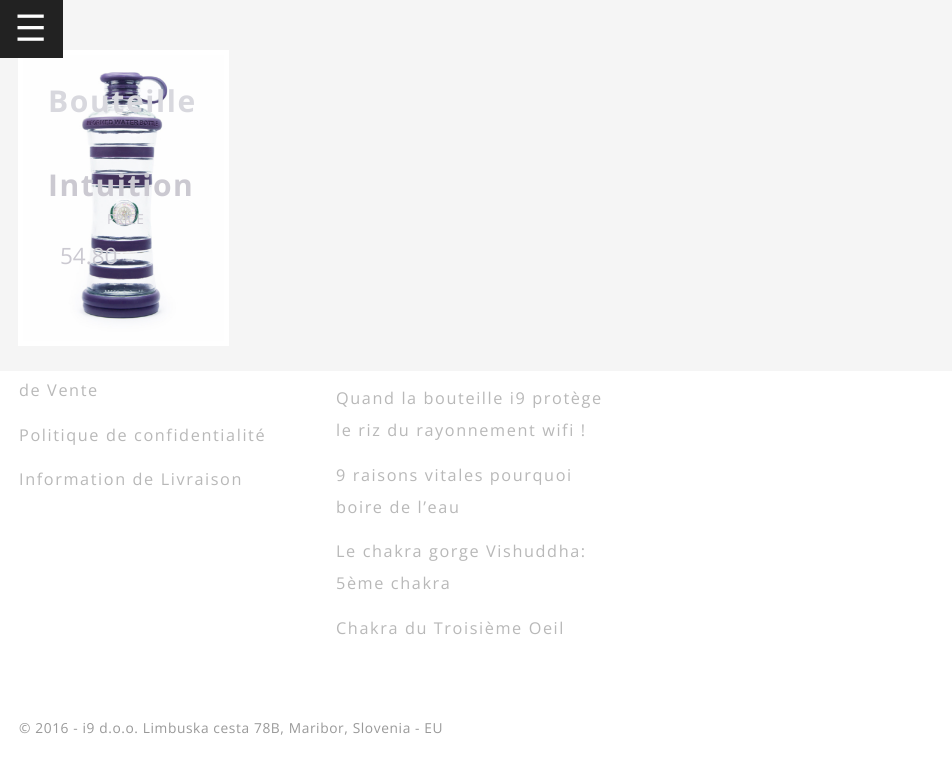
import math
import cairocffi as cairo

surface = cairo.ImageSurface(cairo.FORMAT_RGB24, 952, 770)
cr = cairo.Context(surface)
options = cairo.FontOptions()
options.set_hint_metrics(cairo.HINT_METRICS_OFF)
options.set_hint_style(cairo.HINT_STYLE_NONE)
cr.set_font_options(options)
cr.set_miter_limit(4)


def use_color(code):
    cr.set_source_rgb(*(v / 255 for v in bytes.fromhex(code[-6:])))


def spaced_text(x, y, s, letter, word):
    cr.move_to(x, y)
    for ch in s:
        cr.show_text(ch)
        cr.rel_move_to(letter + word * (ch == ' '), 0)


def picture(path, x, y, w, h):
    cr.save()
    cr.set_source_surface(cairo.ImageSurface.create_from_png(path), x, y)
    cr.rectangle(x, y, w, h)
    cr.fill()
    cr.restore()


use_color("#ffffff")
cr.paint()
use_color("#f5f5f5")
cr.rectangle(0, 0, 952, 371)
cr.fill()
cr.rectangle(20.5, 52.5, 206, 291)
use_color("#ffffff")
cr.set_line_width(5)
cr.stroke()
picture("img2.png", 23, 55, 201, 286)
use_color("#222222")
cr.rectangle(0, 0, 63, 58)
cr.fill()
picture("img1.png", 17, 14, 27, 27)
cr.select_font_face("Open Sans", cairo.FONT_SLANT_NORMAL, cairo.FONT_WEIGHT_BOLD)
cr.set_font_size(30)
use_color("#d8d8de")
spaced_text(48, 112, "Bouteille", 1.6, 0)
use_color("#cbc9d1")
spaced_text(48, 196, "Intuition", 1.6, 0)
cr.select_font_face("Open Sans")
cr.set_font_size(13.75)
cr.move_to(107, 224)
cr.show_text("PRICE")
cr.set_font_size(22.5)
cr.move_to(60, 264)
cr.show_text("54.80")
cr.set_font_size(16.25)
use_color("#b8b8b8")
spaced_text(19, 396, "de Vente", 1.6, 0)
spaced_text(19, 441, "Politique de confidentialité", 1.6, 0)
spaced_text(19, 485, "Information de Livraison", 1.6, 0)
spaced_text(336, 404, "Quand la bouteille i9 protège", 1.6, 0)
spaced_text(336, 436, "le riz du rayonnement wifi !", 1.6, 0)
spaced_text(336, 481, "9 raisons vitales pourquoi", 1.6, 0)
spaced_text(336, 513, "boire de l’eau", 1.6, 0)
spaced_text(336, 557, "Le chakra gorge Vishuddha:", 1.6, 0)
spaced_text(336, 589, "5ème chakra", 1.6, 0)
spaced_text(336, 634, "Chakra du Troisième Oeil", 1.6, 0)
cr.set_font_size(13.75)
use_color("#999999")
spaced_text(19, 733, "© 2016 - i9 d.o.o. Limbuska cesta 78B, Maribor, Slovenia - EU", 0.6, 0)
surface.write_to_png("result.png")
